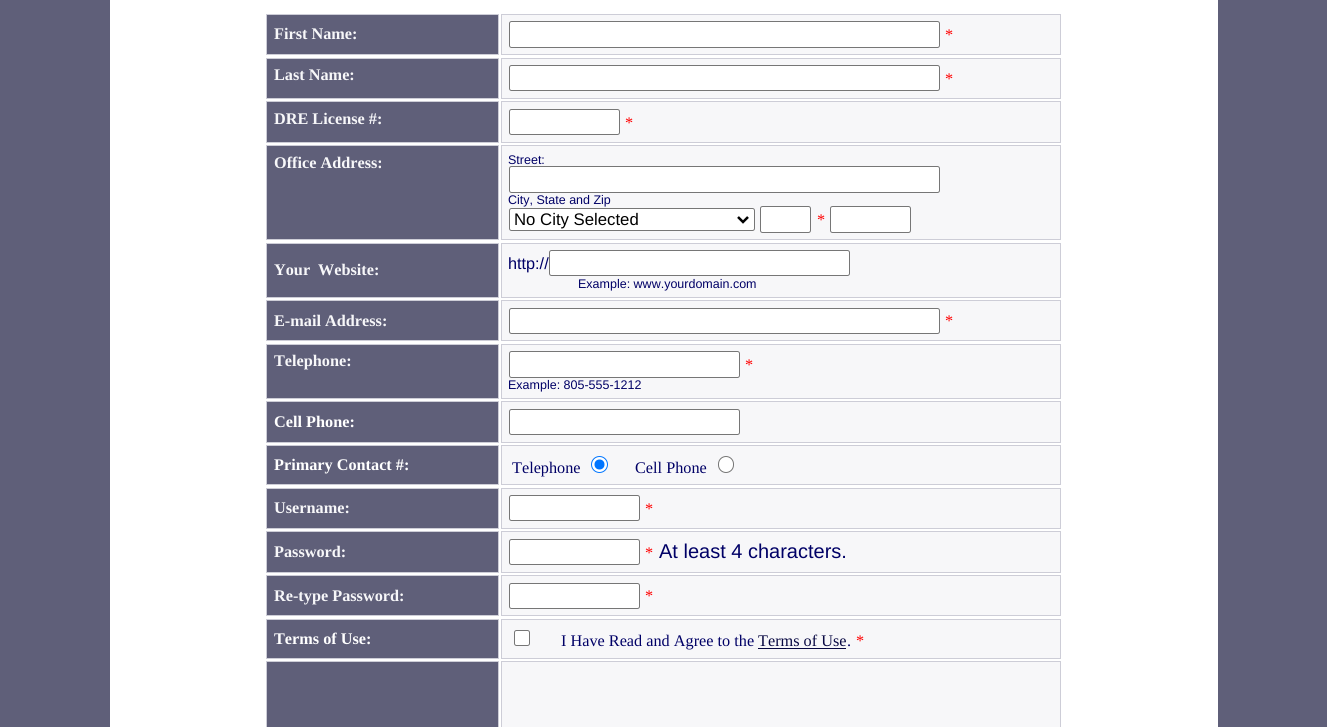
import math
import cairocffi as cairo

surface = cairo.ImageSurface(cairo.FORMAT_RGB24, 1327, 727)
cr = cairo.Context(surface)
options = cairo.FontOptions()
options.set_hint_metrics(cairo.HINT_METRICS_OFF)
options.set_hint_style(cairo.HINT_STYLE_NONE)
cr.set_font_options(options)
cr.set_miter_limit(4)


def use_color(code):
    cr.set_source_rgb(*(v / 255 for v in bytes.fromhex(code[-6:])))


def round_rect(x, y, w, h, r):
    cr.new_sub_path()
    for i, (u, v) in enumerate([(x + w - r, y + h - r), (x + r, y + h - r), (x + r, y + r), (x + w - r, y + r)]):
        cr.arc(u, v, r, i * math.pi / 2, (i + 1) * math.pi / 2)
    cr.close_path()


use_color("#5f5f79")
cr.paint()
use_color("#ffffff")
cr.rectangle(110, 0, 1108, 727)
cr.fill()
use_color("#5f5f79")
cr.rectangle(266.5, 14.5, 232, 40)
cr.fill_preserve()
use_color("#cdcdd7")
cr.set_line_width(1)
cr.stroke()
cr.select_font_face("Liberation Serif", cairo.FONT_SLANT_NORMAL, cairo.FONT_WEIGHT_BOLD)
cr.set_font_size(16.25)
use_color("#f7f7f9")
cr.move_to(274, 39)
cr.show_text("First Name:")
cr.rectangle(501.5, 14.5, 559, 40)
cr.fill_preserve()
use_color("#cdcdd7")
cr.stroke()
use_color("#ffffff")
round_rect(509.5, 21.5, 430, 26, 2)
cr.fill_preserve()
use_color("#767676")
cr.stroke()
cr.select_font_face("Liberation Serif")
use_color("#ff0000")
cr.move_to(945, 40)
cr.show_text("*")
use_color("#5f5f79")
cr.rectangle(266.5, 58.5, 232, 40)
cr.fill_preserve()
use_color("#cdcdd7")
cr.stroke()
cr.select_font_face("Liberation Serif", cairo.FONT_SLANT_NORMAL, cairo.FONT_WEIGHT_BOLD)
use_color("#f7f7f9")
cr.move_to(274, 80)
cr.show_text("Last Name:")
cr.rectangle(501.5, 58.5, 559, 40)
cr.fill_preserve()
use_color("#cdcdd7")
cr.stroke()
use_color("#ffffff")
round_rect(509.5, 65.5, 430, 25, 2)
cr.fill_preserve()
use_color("#767676")
cr.stroke()
cr.select_font_face("Liberation Serif")
use_color("#ff0000")
cr.move_to(945, 84)
cr.show_text("*")
use_color("#5f5f79")
cr.rectangle(266.5, 101.5, 232, 41)
cr.fill_preserve()
use_color("#cdcdd7")
cr.stroke()
cr.select_font_face("Liberation Serif", cairo.FONT_SLANT_NORMAL, cairo.FONT_WEIGHT_BOLD)
use_color("#f7f7f9")
cr.move_to(274, 124)
cr.show_text("DRE License #:")
cr.rectangle(501.5, 101.5, 559, 41)
cr.fill_preserve()
use_color("#cdcdd7")
cr.stroke()
use_color("#ffffff")
round_rect(509.5, 109.5, 110, 25, 2)
cr.fill_preserve()
use_color("#767676")
cr.stroke()
cr.select_font_face("Liberation Serif")
use_color("#ff0000")
cr.move_to(625, 128)
cr.show_text("*")
use_color("#5f5f79")
cr.rectangle(266.5, 145.5, 232, 94)
cr.fill_preserve()
use_color("#cdcdd7")
cr.stroke()
cr.select_font_face("Liberation Serif", cairo.FONT_SLANT_NORMAL, cairo.FONT_WEIGHT_BOLD)
use_color("#f7f7f9")
cr.move_to(274, 168)
cr.show_text("Office Address:")
cr.rectangle(501.5, 145.5, 559, 94)
cr.fill_preserve()
use_color("#cdcdd7")
cr.stroke()
cr.select_font_face("Liberation Sans")
cr.set_font_size(12.5)
use_color("#000066")
cr.move_to(508, 164)
cr.show_text("Street:")
use_color("#ffffff")
round_rect(509.5, 166.5, 430, 26, 2)
cr.fill_preserve()
use_color("#767676")
cr.stroke()
use_color("#000066")
cr.move_to(508, 204)
cr.show_text("City, State and Zip")
use_color("#ffffff")
round_rect(509.5, 208.5, 245, 22, 2)
cr.fill_preserve()
use_color("#767676")
cr.stroke()
cr.new_path()
cr.move_to(738, 217)
cr.line_to(743, 222)
cr.line_to(748, 217)
use_color("#000000")
cr.set_line_width(2.5)
cr.stroke()
cr.set_font_size(16.75)
cr.move_to(514, 225)
cr.show_text("No City Selected")
use_color("#ffffff")
round_rect(760.5, 206.5, 50, 26, 2)
cr.fill_preserve()
use_color("#767676")
cr.set_line_width(1)
cr.stroke()
cr.select_font_face("Liberation Serif")
cr.set_font_size(16.25)
use_color("#ff0000")
cr.move_to(817, 225)
cr.show_text("*")
use_color("#ffffff")
round_rect(830.5, 206.5, 80, 26, 2)
cr.fill_preserve()
use_color("#767676")
cr.stroke()
use_color("#5f5f79")
cr.rectangle(266.5, 243.5, 232, 54)
cr.fill_preserve()
use_color("#cdcdd7")
cr.stroke()
cr.select_font_face("Liberation Serif", cairo.FONT_SLANT_NORMAL, cairo.FONT_WEIGHT_BOLD)
use_color("#f7f7f9")
cr.move_to(274, 275)
cr.show_text("Your")
cr.move_to(318, 275)
cr.show_text("Website:")
cr.rectangle(501.5, 243.5, 559, 54)
cr.fill_preserve()
use_color("#cdcdd7")
cr.stroke()
cr.select_font_face("Liberation Sans")
use_color("#000066")
cr.move_to(508, 269)
cr.show_text("http://")
use_color("#ffffff")
round_rect(549.5, 250.5, 300, 25, 2)
cr.fill_preserve()
use_color("#767676")
cr.stroke()
cr.set_font_size(12.5)
use_color("#000066")
cr.move_to(578, 288)
cr.show_text("Example: www.yourdomain.com")
use_color("#5f5f79")
cr.rectangle(266.5, 300.5, 232, 40)
cr.fill_preserve()
use_color("#cdcdd7")
cr.stroke()
cr.select_font_face("Liberation Serif", cairo.FONT_SLANT_NORMAL, cairo.FONT_WEIGHT_BOLD)
cr.set_font_size(16.25)
use_color("#f7f7f9")
cr.move_to(274, 326)
cr.show_text("E-mail Address:")
cr.rectangle(501.5, 300.5, 559, 40)
cr.fill_preserve()
use_color("#cdcdd7")
cr.stroke()
use_color("#ffffff")
round_rect(509.5, 308.5, 430, 25, 2)
cr.fill_preserve()
use_color("#767676")
cr.stroke()
cr.select_font_face("Liberation Serif")
use_color("#ff0000")
cr.move_to(945, 326)
cr.show_text("*")
use_color("#5f5f79")
cr.rectangle(266.5, 344.5, 232, 54)
cr.fill_preserve()
use_color("#cdcdd7")
cr.stroke()
cr.select_font_face("Liberation Serif", cairo.FONT_SLANT_NORMAL, cairo.FONT_WEIGHT_BOLD)
use_color("#f7f7f9")
cr.move_to(274, 366)
cr.show_text("Telephone:")
cr.rectangle(501.5, 344.5, 559, 54)
cr.fill_preserve()
use_color("#cdcdd7")
cr.stroke()
use_color("#ffffff")
round_rect(509.5, 351.5, 230, 26, 2)
cr.fill_preserve()
use_color("#767676")
cr.stroke()
cr.select_font_face("Liberation Serif")
use_color("#ff0000")
cr.move_to(745, 370)
cr.show_text("*")
cr.select_font_face("Liberation Sans")
cr.set_font_size(12.5)
use_color("#000066")
cr.move_to(508, 389)
cr.show_text("Example: 805-555-1212")
use_color("#5f5f79")
cr.rectangle(266.5, 401.5, 232, 41)
cr.fill_preserve()
use_color("#cdcdd7")
cr.stroke()
cr.select_font_face("Liberation Serif", cairo.FONT_SLANT_NORMAL, cairo.FONT_WEIGHT_BOLD)
cr.set_font_size(16.25)
use_color("#ffffff")
cr.move_to(274, 427)
cr.show_text("Cell Phone:")
use_color("#f7f7f9")
cr.rectangle(501.5, 401.5, 559, 41)
cr.fill_preserve()
use_color("#cdcdd7")
cr.stroke()
use_color("#ffffff")
round_rect(509.5, 409.5, 230, 25, 2)
cr.fill_preserve()
use_color("#767676")
cr.stroke()
use_color("#5f5f79")
cr.rectangle(266.5, 445.5, 232, 39)
cr.fill_preserve()
use_color("#cdcdd7")
cr.stroke()
use_color("#ffffff")
cr.move_to(274, 470)
cr.show_text("Primary Contact #:")
use_color("#f7f7f9")
cr.rectangle(501.5, 445.5, 559, 39)
cr.fill_preserve()
use_color("#cdcdd7")
cr.stroke()
cr.select_font_face("Liberation Serif")
use_color("#000066")
cr.move_to(512, 473)
cr.show_text("Telephone")
use_color("#ffffff")
cr.new_path()
cr.arc(599.5, 464.5, 8, 0, 2 * math.pi)
cr.fill_preserve()
use_color("#0075ff")
cr.stroke()
cr.arc(599.5, 464.5, 5, 0, 2 * math.pi)
cr.fill()
use_color("#000066")
cr.move_to(635, 473)
cr.show_text("Cell Phone")
use_color("#ffffff")
round_rect(718.5, 456.5, 15, 16, 7.5)
cr.fill_preserve()
use_color("#767676")
cr.stroke()
use_color("#5f5f79")
cr.rectangle(266.5, 488.5, 232, 40)
cr.fill_preserve()
use_color("#cdcdd7")
cr.stroke()
cr.select_font_face("Liberation Serif", cairo.FONT_SLANT_NORMAL, cairo.FONT_WEIGHT_BOLD)
use_color("#f7f7f9")
cr.move_to(274, 513)
cr.show_text("Username:")
cr.rectangle(501.5, 488.5, 559, 40)
cr.fill_preserve()
use_color("#cdcdd7")
cr.stroke()
use_color("#ffffff")
round_rect(509.5, 495.5, 130, 25, 2)
cr.fill_preserve()
use_color("#767676")
cr.stroke()
cr.select_font_face("Liberation Serif")
use_color("#ff0000")
cr.move_to(645, 514)
cr.show_text("*")
use_color("#5f5f79")
cr.rectangle(266.5, 531.5, 232, 41)
cr.fill_preserve()
use_color("#cdcdd7")
cr.stroke()
cr.select_font_face("Liberation Serif", cairo.FONT_SLANT_NORMAL, cairo.FONT_WEIGHT_BOLD)
use_color("#f7f7f9")
cr.move_to(274, 557)
cr.show_text("Password:")
cr.rectangle(501.5, 531.5, 559, 41)
cr.fill_preserve()
use_color("#cdcdd7")
cr.stroke()
use_color("#ffffff")
round_rect(509.5, 539.5, 130, 25, 2)
cr.fill_preserve()
use_color("#767676")
cr.stroke()
cr.select_font_face("Liberation Serif")
use_color("#ff0000")
cr.move_to(645, 558)
cr.show_text("*")
cr.select_font_face("Liberation Sans")
cr.set_font_size(20)
use_color("#000066")
cr.move_to(659, 558)
cr.show_text("At least 4 characters.")
use_color("#5f5f79")
cr.rectangle(266.5, 575.5, 232, 40)
cr.fill_preserve()
use_color("#cdcdd7")
cr.stroke()
cr.select_font_face("Liberation Serif", cairo.FONT_SLANT_NORMAL, cairo.FONT_WEIGHT_BOLD)
cr.set_font_size(16.25)
use_color("#f7f7f9")
cr.move_to(274, 601)
cr.show_text("Re-type Password:")
cr.rectangle(501.5, 575.5, 559, 40)
cr.fill_preserve()
use_color("#cdcdd7")
cr.stroke()
use_color("#ffffff")
round_rect(509.5, 583.5, 130, 25, 2)
cr.fill_preserve()
use_color("#767676")
cr.stroke()
cr.select_font_face("Liberation Serif")
use_color("#ff0000")
cr.move_to(645, 601)
cr.show_text("*")
use_color("#5f5f79")
cr.rectangle(266.5, 619.5, 232, 39)
cr.fill_preserve()
use_color("#cdcdd7")
cr.stroke()
cr.select_font_face("Liberation Serif", cairo.FONT_SLANT_NORMAL, cairo.FONT_WEIGHT_BOLD)
use_color("#ffffff")
cr.move_to(274, 644)
cr.show_text("Terms of Use:")
use_color("#f7f7f9")
cr.rectangle(501.5, 619.5, 559, 39)
cr.fill_preserve()
use_color("#cdcdd7")
cr.stroke()
use_color("#ffffff")
round_rect(514.5, 630.5, 15, 15, 2)
cr.fill_preserve()
use_color("#767676")
cr.stroke()
cr.select_font_face("Liberation Serif")
use_color("#000066")
cr.move_to(561, 646)
cr.show_text("I Have Read and Agree to the")
use_color("#080842")
cr.move_to(758, 646)
cr.show_text("Terms of Use")
use_color("#ff0000")
cr.move_to(856, 646)
cr.show_text("*")
use_color("#000066")
cr.move_to(847, 646)
cr.show_text(".")
use_color("#080842")
cr.rectangle(758, 648, 88, 1)
cr.fill()
use_color("#5f5f79")
cr.rectangle(266.5, 661.5, 232, 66)
cr.fill_preserve()
use_color("#cdcdd7")
cr.stroke()
use_color("#f7f7f9")
cr.rectangle(501.5, 661.5, 559, 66)
cr.fill_preserve()
use_color("#cdcdd7")
cr.stroke()
surface.write_to_png("result.png")
